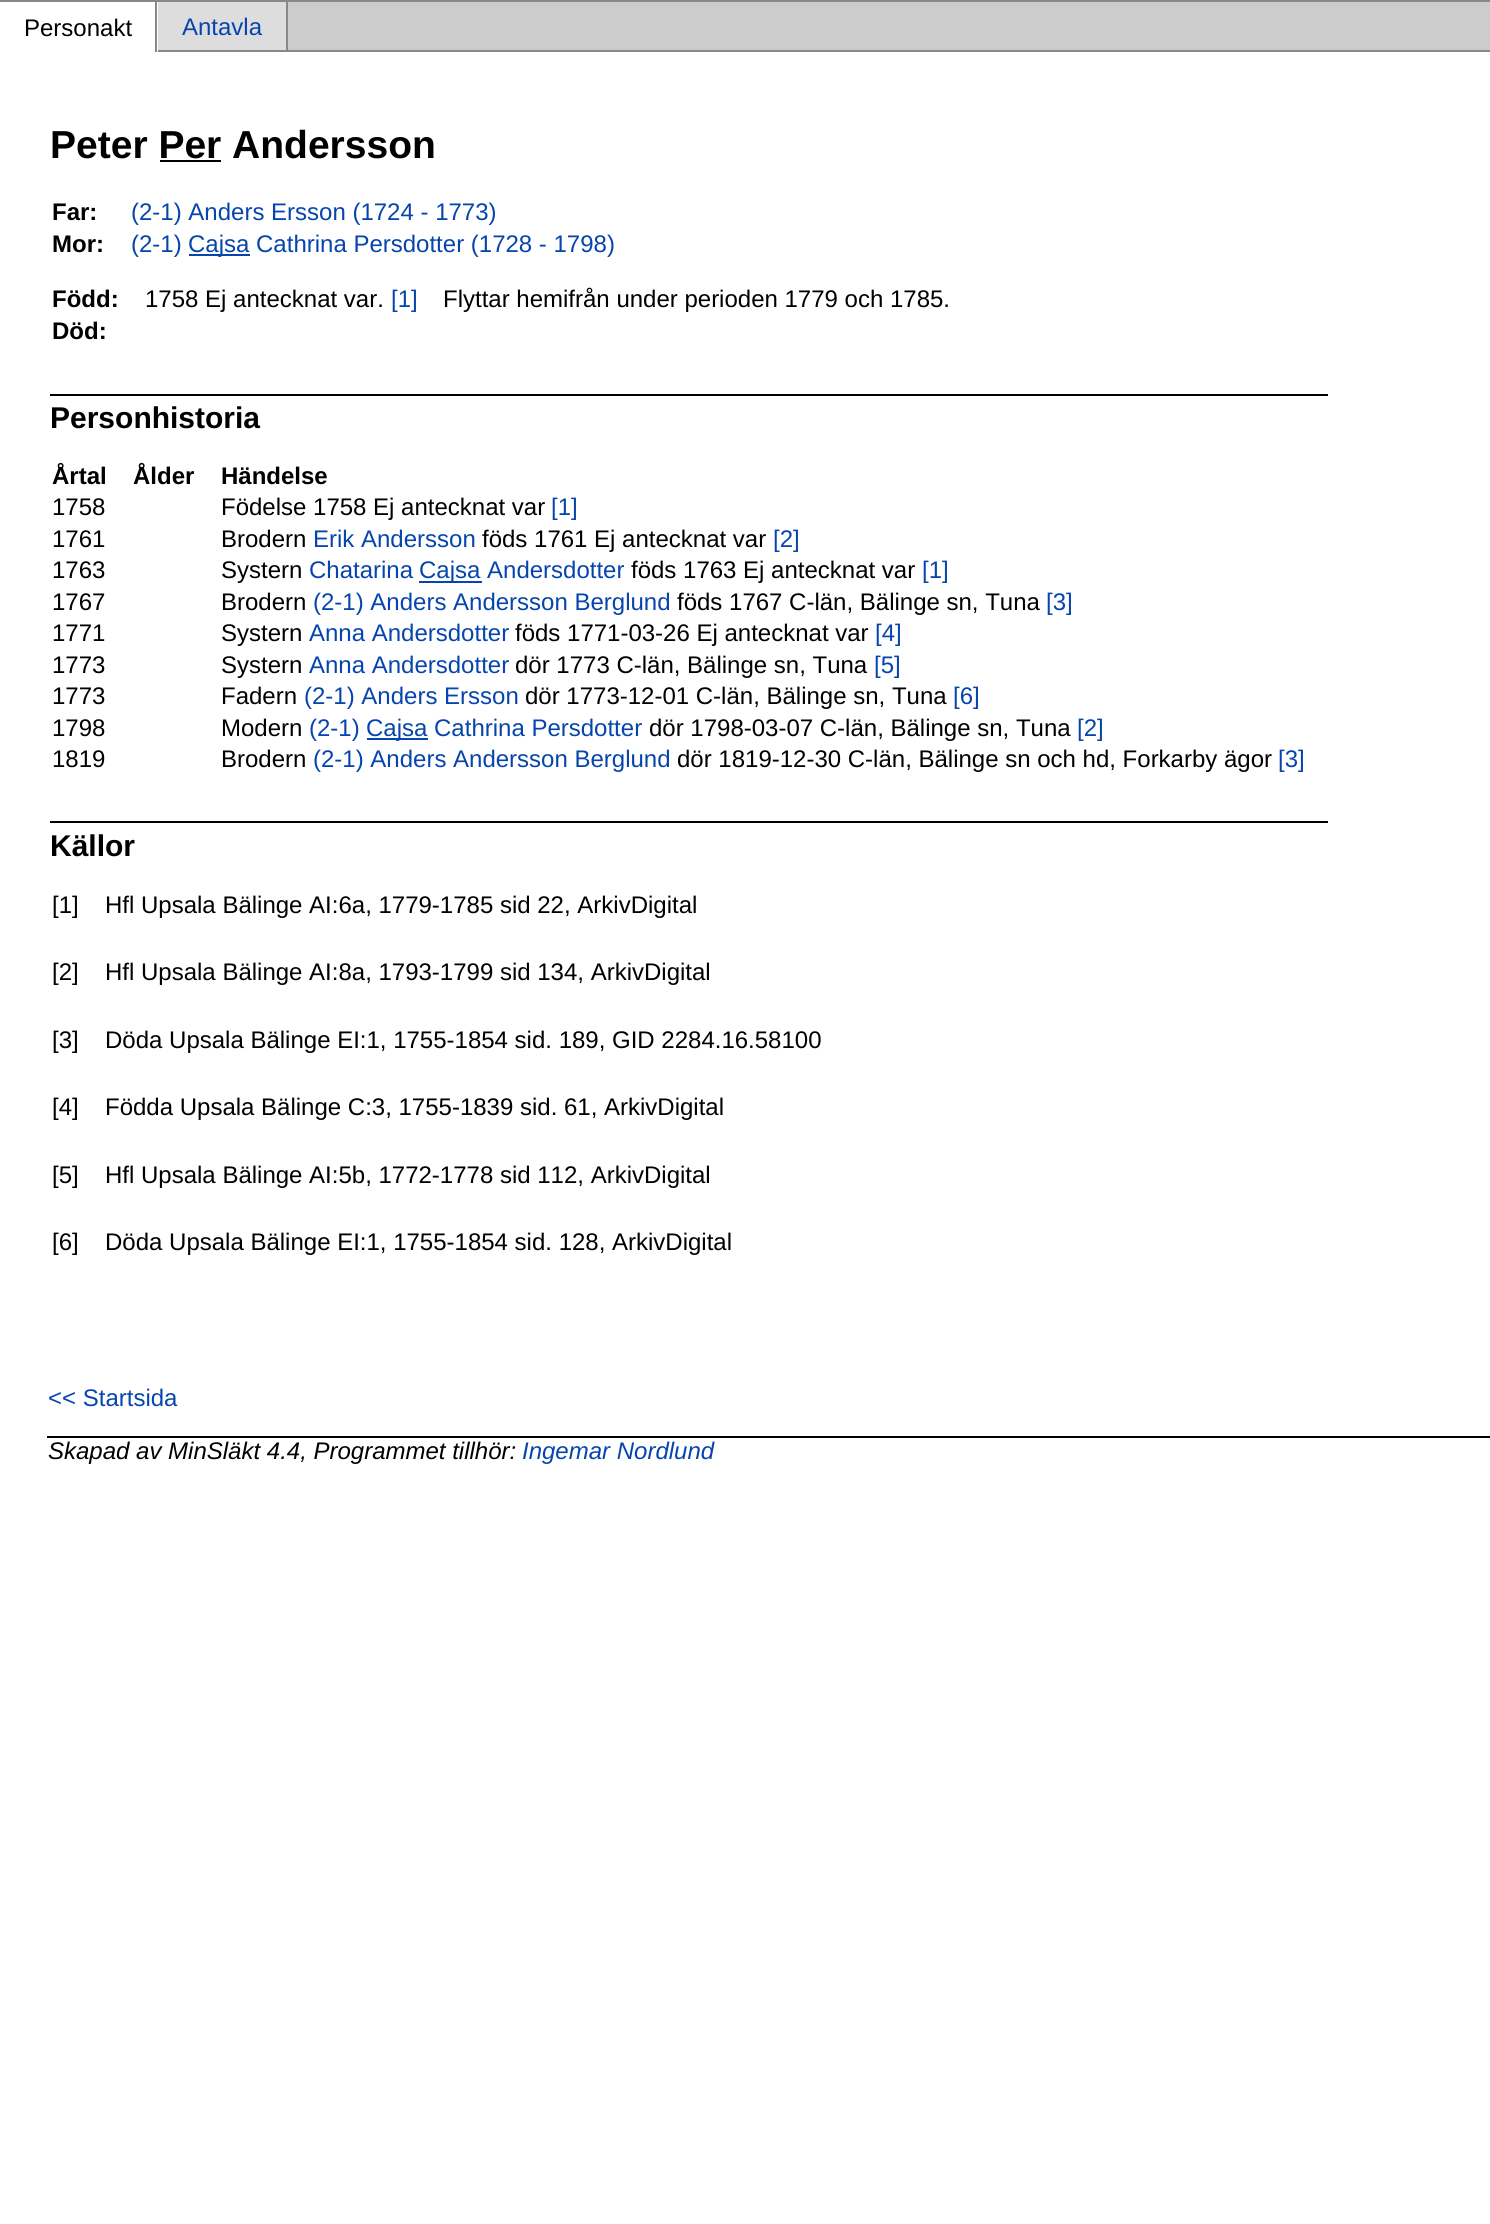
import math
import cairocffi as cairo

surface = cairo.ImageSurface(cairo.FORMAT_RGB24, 1490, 2224)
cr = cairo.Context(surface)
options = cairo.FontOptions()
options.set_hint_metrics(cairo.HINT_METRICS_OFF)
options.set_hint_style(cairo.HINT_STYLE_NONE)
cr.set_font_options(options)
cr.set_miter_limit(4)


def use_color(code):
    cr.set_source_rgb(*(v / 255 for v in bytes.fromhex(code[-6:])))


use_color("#ffffff")
cr.paint()
use_color("#888888")
cr.rectangle(0, 0, 1490, 2)
cr.fill()
cr.rectangle(155, 0, 2, 52)
cr.fill()
cr.select_font_face("Liberation Sans")
cr.set_font_size(24)
use_color("#000000")
cr.move_to(24, 36)
cr.show_text("Personakt")
use_color("#dddddd")
cr.rectangle(158, 2, 128, 48)
cr.fill()
use_color("#888888")
cr.rectangle(286, 0, 2, 52)
cr.fill()
cr.rectangle(158, 50, 1332, 2)
cr.fill()
use_color("#0645ad")
cr.move_to(182, 35)
cr.show_text("Antavla")
use_color("#cccccc")
cr.rectangle(288, 2, 1202, 48)
cr.fill()
cr.select_font_face("Liberation Sans", cairo.FONT_SLANT_NORMAL, cairo.FONT_WEIGHT_BOLD)
cr.set_font_size(39)
use_color("#000000")
cr.move_to(50, 158)
cr.show_text("Peter Per Andersson")
cr.rectangle(160, 160, 61, 2)
cr.fill()
cr.set_font_size(24)
cr.move_to(52, 220)
cr.show_text("Far:")
cr.select_font_face("Liberation Sans")
use_color("#0645ad")
cr.move_to(131, 220)
cr.show_text("(2-1) Anders Ersson (1724 - 1773)")
cr.select_font_face("Liberation Sans", cairo.FONT_SLANT_NORMAL, cairo.FONT_WEIGHT_BOLD)
use_color("#000000")
cr.move_to(52, 252)
cr.show_text("Mor:")
cr.select_font_face("Liberation Sans")
use_color("#0645ad")
cr.move_to(131, 252)
cr.show_text("(2-1)")
cr.rectangle(189, 254, 61, 2)
cr.fill()
cr.move_to(188, 252)
cr.show_text("Cajsa Cathrina Persdotter (1728 - 1798)")
cr.select_font_face("Liberation Sans", cairo.FONT_SLANT_NORMAL, cairo.FONT_WEIGHT_BOLD)
use_color("#000000")
cr.move_to(52, 307)
cr.show_text("Född:")
cr.select_font_face("Liberation Sans")
cr.move_to(145, 307)
cr.show_text("1758 Ej antecknat var.")
use_color("#0645ad")
cr.move_to(391, 307)
cr.show_text("[1]")
use_color("#000000")
cr.move_to(443, 307)
cr.show_text("Flyttar hemifrån under perioden 1779 och 1785.")
cr.select_font_face("Liberation Sans", cairo.FONT_SLANT_NORMAL, cairo.FONT_WEIGHT_BOLD)
cr.move_to(52, 339)
cr.show_text("Död:")
cr.rectangle(50, 394, 1278, 2)
cr.fill()
cr.set_font_size(30)
cr.move_to(50, 428)
cr.show_text("Personhistoria")
cr.set_font_size(24)
cr.move_to(52, 484)
cr.show_text("Årtal")
cr.move_to(133, 484)
cr.show_text("Ålder")
cr.move_to(221, 484)
cr.show_text("Händelse")
cr.select_font_face("Liberation Sans")
cr.move_to(52, 515)
cr.show_text("1758")
cr.move_to(221, 515)
cr.show_text("Födelse 1758 Ej antecknat var")
use_color("#0645ad")
cr.move_to(551, 515)
cr.show_text("[1]")
use_color("#000000")
cr.move_to(52, 547)
cr.show_text("1761")
cr.move_to(221, 547)
cr.show_text("Brodern")
use_color("#0645ad")
cr.move_to(313, 547)
cr.show_text("Erik Andersson")
use_color("#000000")
cr.move_to(482, 547)
cr.show_text("föds 1761 Ej antecknat var")
use_color("#0645ad")
cr.move_to(773, 547)
cr.show_text("[2]")
use_color("#000000")
cr.move_to(52, 578)
cr.show_text("1763")
cr.move_to(221, 578)
cr.show_text("Systern")
use_color("#0645ad")
cr.move_to(309, 578)
cr.show_text("Chatarina")
cr.rectangle(419, 581, 63, 2)
cr.fill()
cr.move_to(419, 578)
cr.show_text("Cajsa Andersdotter")
use_color("#000000")
cr.move_to(631, 578)
cr.show_text("föds 1763 Ej antecknat var")
use_color("#0645ad")
cr.move_to(922, 578)
cr.show_text("[1]")
use_color("#000000")
cr.move_to(52, 610)
cr.show_text("1767")
cr.move_to(221, 610)
cr.show_text("Brodern")
use_color("#0645ad")
cr.move_to(313, 610)
cr.show_text("(2-1) Anders Andersson Berglund")
use_color("#000000")
cr.move_to(677, 610)
cr.show_text("föds 1767 C-län, Bälinge sn, Tuna")
use_color("#0645ad")
cr.move_to(1046, 610)
cr.show_text("[3]")
use_color("#000000")
cr.move_to(52, 641)
cr.show_text("1771")
cr.move_to(221, 641)
cr.show_text("Systern")
use_color("#0645ad")
cr.move_to(309, 641)
cr.show_text("Anna Andersdotter")
use_color("#000000")
cr.move_to(515, 641)
cr.show_text("föds 1771-03-26 Ej antecknat var")
use_color("#0645ad")
cr.move_to(875, 641)
cr.show_text("[4]")
use_color("#000000")
cr.move_to(52, 673)
cr.show_text("1773")
cr.move_to(221, 673)
cr.show_text("Systern")
use_color("#0645ad")
cr.move_to(309, 673)
cr.show_text("Anna Andersdotter")
use_color("#000000")
cr.move_to(515, 673)
cr.show_text("dör 1773 C-län, Bälinge sn, Tuna")
use_color("#0645ad")
cr.move_to(874, 673)
cr.show_text("[5]")
use_color("#000000")
cr.move_to(52, 704)
cr.show_text("1773")
cr.move_to(221, 704)
cr.show_text("Fadern")
use_color("#0645ad")
cr.move_to(304, 704)
cr.show_text("(2-1) Anders Ersson")
use_color("#000000")
cr.move_to(525, 704)
cr.show_text("dör 1773-12-01 C-län, Bälinge sn, Tuna")
use_color("#0645ad")
cr.move_to(953, 704)
cr.show_text("[6]")
use_color("#000000")
cr.move_to(52, 736)
cr.show_text("1798")
cr.move_to(221, 736)
cr.show_text("Modern")
use_color("#0645ad")
cr.move_to(309, 736)
cr.show_text("(2-1)")
cr.rectangle(367, 738, 61, 2)
cr.fill()
cr.move_to(366, 736)
cr.show_text("Cajsa Cathrina Persdotter")
use_color("#000000")
cr.move_to(649, 736)
cr.show_text("dör 1798-03-07 C-län, Bälinge sn, Tuna")
use_color("#0645ad")
cr.move_to(1077, 736)
cr.show_text("[2]")
use_color("#000000")
cr.move_to(52, 767)
cr.show_text("1819")
cr.move_to(221, 767)
cr.show_text("Brodern")
use_color("#0645ad")
cr.move_to(313, 767)
cr.show_text("(2-1) Anders Andersson Berglund")
use_color("#000000")
cr.move_to(677, 767)
cr.show_text("dör 1819-12-30 C-län, Bälinge sn och hd, Forkarby ägor")
use_color("#0645ad")
cr.move_to(1278, 767)
cr.show_text("[3]")
use_color("#000000")
cr.rectangle(50, 821, 1278, 2)
cr.fill()
cr.select_font_face("Liberation Sans", cairo.FONT_SLANT_NORMAL, cairo.FONT_WEIGHT_BOLD)
cr.set_font_size(30)
cr.move_to(50, 856)
cr.show_text("Källor")
cr.select_font_face("Liberation Sans")
cr.set_font_size(24)
cr.move_to(52, 913)
cr.show_text("[1]")
cr.move_to(105, 913)
cr.show_text("Hfl Upsala Bälinge AI:6a, 1779-1785 sid 22, ArkivDigital")
cr.move_to(52, 980)
cr.show_text("[2]")
cr.move_to(105, 980)
cr.show_text("Hfl Upsala Bälinge AI:8a, 1793-1799 sid 134, ArkivDigital")
cr.move_to(52, 1048)
cr.show_text("[3]")
cr.move_to(105, 1048)
cr.show_text("Döda Upsala Bälinge EI:1, 1755-1854 sid. 189, GID 2284.16.58100")
cr.move_to(52, 1115)
cr.show_text("[4]")
cr.move_to(105, 1115)
cr.show_text("Födda Upsala Bälinge C:3, 1755-1839 sid. 61, ArkivDigital")
cr.move_to(52, 1183)
cr.show_text("[5]")
cr.move_to(105, 1183)
cr.show_text("Hfl Upsala Bälinge AI:5b, 1772-1778 sid 112, ArkivDigital")
cr.move_to(52, 1250)
cr.show_text("[6]")
cr.move_to(105, 1250)
cr.show_text("Döda Upsala Bälinge EI:1, 1755-1854 sid. 128, ArkivDigital")
use_color("#0645ad")
cr.move_to(48, 1406)
cr.show_text("<< Startsida")
use_color("#000000")
cr.rectangle(47, 1436, 1443, 2)
cr.fill()
cr.select_font_face("Liberation Sans", cairo.FONT_SLANT_ITALIC)
cr.move_to(48, 1459)
cr.show_text("Skapad av MinSläkt 4.4, Programmet tillhör:")
use_color("#0645ad")
cr.move_to(522, 1459)
cr.show_text("Ingemar Nordlund")
surface.write_to_png("result.png")
